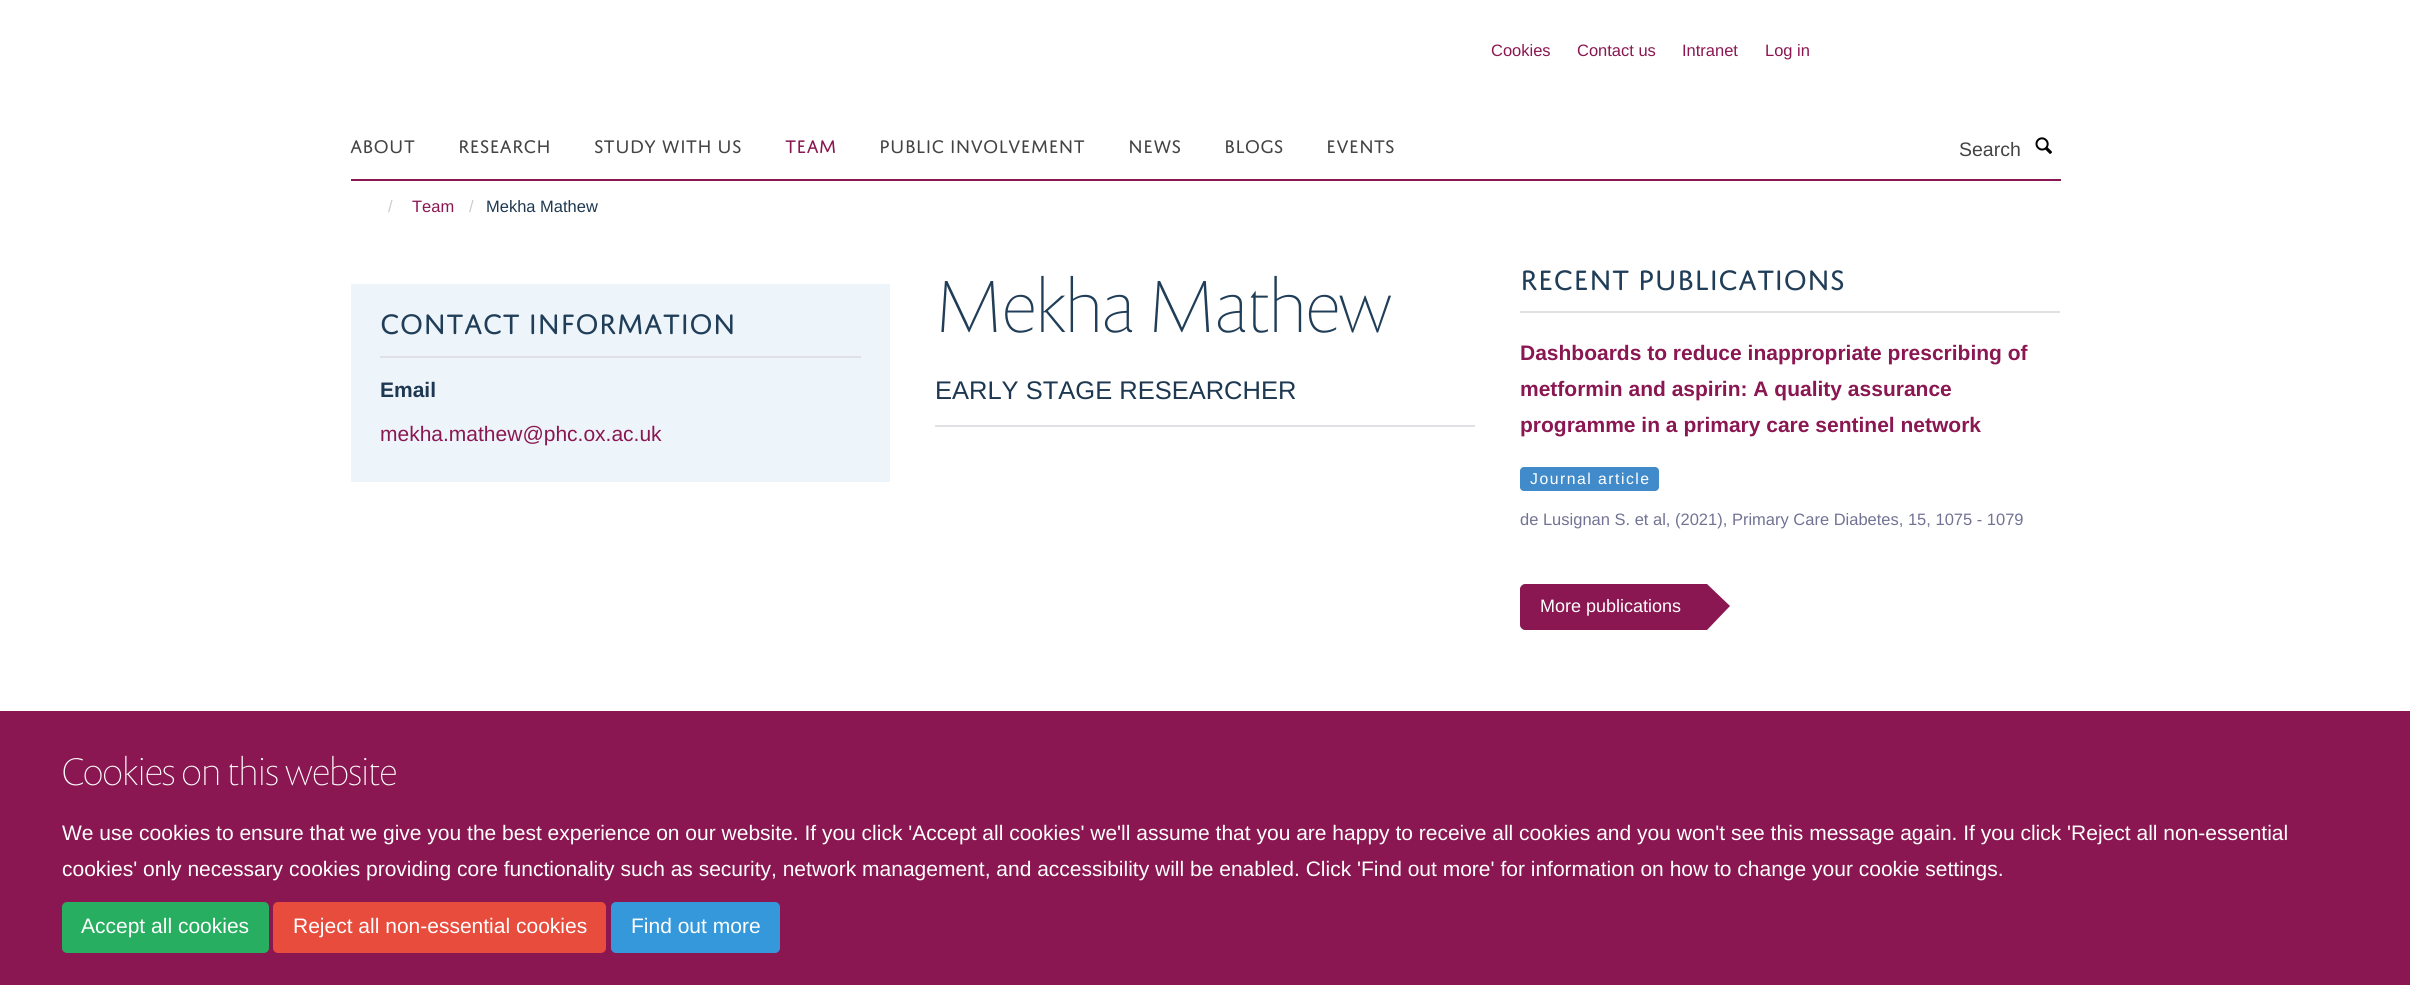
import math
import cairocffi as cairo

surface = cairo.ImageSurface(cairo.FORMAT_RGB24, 2410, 985)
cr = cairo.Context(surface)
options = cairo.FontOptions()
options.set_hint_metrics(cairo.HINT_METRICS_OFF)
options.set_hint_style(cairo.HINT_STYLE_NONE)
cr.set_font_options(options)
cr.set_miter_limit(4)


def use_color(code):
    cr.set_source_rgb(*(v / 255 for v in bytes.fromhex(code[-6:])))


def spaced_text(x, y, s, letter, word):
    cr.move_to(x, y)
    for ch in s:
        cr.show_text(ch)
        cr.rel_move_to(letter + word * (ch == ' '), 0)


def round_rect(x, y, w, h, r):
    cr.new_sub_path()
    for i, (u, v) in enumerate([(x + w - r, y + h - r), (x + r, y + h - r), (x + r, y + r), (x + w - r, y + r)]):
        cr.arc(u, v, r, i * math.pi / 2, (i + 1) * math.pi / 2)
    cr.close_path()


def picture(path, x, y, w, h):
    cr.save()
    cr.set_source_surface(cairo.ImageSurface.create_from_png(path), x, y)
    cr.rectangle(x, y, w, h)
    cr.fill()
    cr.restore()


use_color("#ffffff")
cr.paint()
cr.select_font_face("Liberation Sans")
cr.set_font_size(16.5)
use_color("#8a1751")
cr.move_to(1491, 56)
cr.show_text("Cookies")
cr.move_to(1577, 56)
cr.show_text("Contact us")
cr.move_to(1682, 56)
cr.show_text("Intranet")
cr.move_to(1765, 56)
cr.show_text("Log in")
cr.rectangle(351, 179, 1710, 2)
cr.fill()
cr.select_font_face("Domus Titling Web")
cr.set_font_size(19.5)
use_color("#444444")
cr.move_to(350, 153)
cr.show_text("ABOUT")
cr.move_to(458, 153)
cr.show_text("RESEARCH")
cr.move_to(594, 153)
cr.show_text("STUDY WITH US")
use_color("#8a1751")
cr.move_to(785, 153)
cr.show_text("TEAM")
use_color("#444444")
cr.move_to(879, 153)
cr.show_text("PUBLIC INVOLVEMENT")
cr.move_to(1128, 153)
cr.show_text("NEWS")
cr.move_to(1224, 153)
cr.show_text("BLOGS")
cr.move_to(1326, 153)
cr.show_text("EVENTS")
cr.select_font_face("Liberation Sans")
cr.move_to(1959, 156)
cr.show_text("Search")
picture("img1.png", 2035, 137, 17, 17)
cr.set_font_size(16.5)
use_color("#cccccc")
cr.move_to(388, 212)
cr.show_text("/")
use_color("#8a1751")
cr.move_to(412, 212)
cr.show_text("Team")
use_color("#cccccc")
cr.move_to(469, 212)
cr.show_text("/")
use_color("#1d3850")
cr.move_to(486, 212)
cr.show_text("Mekha Mathew")
use_color("#edf4fa")
cr.rectangle(351, 284, 539, 198)
cr.fill()
use_color("#dfe1e4")
cr.rectangle(380, 356, 481, 2)
cr.fill()
cr.select_font_face("Domus Titling Web")
cr.set_font_size(30)
use_color("#203e58")
cr.move_to(380, 334)
cr.show_text("CONTACT INFORMATION")
cr.select_font_face("Liberation Sans", cairo.FONT_SLANT_NORMAL, cairo.FONT_WEIGHT_BOLD)
cr.set_font_size(21)
use_color("#1d3850")
cr.move_to(380, 397)
cr.show_text("Email")
cr.select_font_face("Liberation Sans")
use_color("#8a1751")
cr.move_to(380, 441)
cr.show_text("mekha.mathew@phc.ox.ac.uk")
cr.select_font_face("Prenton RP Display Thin")
cr.set_font_size(75)
use_color("#203e58")
cr.move_to(935, 332)
cr.show_text("Mekha Mathew")
use_color("#dfe1e4")
cr.rectangle(935, 425, 540, 2)
cr.fill()
cr.select_font_face("Liberation Sans")
cr.set_font_size(25.5)
use_color("#1d3850")
cr.move_to(935, 399)
cr.show_text("EARLY STAGE RESEARCHER")
use_color("#dfe1e4")
cr.rectangle(1520, 311, 540, 2)
cr.fill()
cr.select_font_face("Domus Titling Web")
cr.set_font_size(30)
use_color("#203e58")
cr.move_to(1520, 290)
cr.show_text("RECENT PUBLICATIONS")
cr.select_font_face("Liberation Sans", cairo.FONT_SLANT_NORMAL, cairo.FONT_WEIGHT_BOLD)
cr.set_font_size(21)
use_color("#8a1751")
cr.move_to(1520, 360)
cr.show_text("Dashboards to reduce inappropriate prescribing of")
cr.move_to(1520, 396)
cr.show_text("metformin and aspirin: A quality assurance")
cr.move_to(1520, 432)
cr.show_text("programme in a primary care sentinel network")
use_color("#428bca")
round_rect(1520, 467, 139, 24, 4)
cr.fill()
cr.select_font_face("Liberation Sans")
cr.set_font_size(15.75)
use_color("#ffffff")
spaced_text(1530, 484, "Journal article", 1.5, 0)
cr.set_font_size(16.5)
use_color("#727295")
cr.move_to(1520, 525)
cr.show_text("de Lusignan S. et al, (2021), Primary Care Diabetes, 15, 1075 - 1079")
use_color("#8a1751")
cr.new_path()
cr.move_to(1525, 585)
cr.line_to(1706, 585)
cr.line_to(1706, 629)
cr.line_to(1525, 629)
cr.curve_to(1523, 629, 1521, 627, 1521, 625)
cr.line_to(1521, 589)
cr.curve_to(1521, 587, 1523, 585, 1525, 585)
cr.close_path()
cr.fill_preserve()
cr.stroke()
cr.set_font_size(18)
use_color("#ffffff")
cr.move_to(1540, 612)
cr.show_text("More publications")
use_color("#8a1751")
cr.new_path()
cr.move_to(1707, 630)
cr.line_to(1707, 584)
cr.line_to(1730, 606)
cr.close_path()
cr.fill()
cr.rectangle(0, 711, 2410, 274)
cr.fill()
cr.select_font_face("Prenton RP Display Thin")
cr.set_font_size(39)
use_color("#ffffff")
cr.move_to(62, 785)
cr.show_text("Cookies on this website")
cr.select_font_face("Liberation Sans")
cr.set_font_size(21)
cr.move_to(62, 840)
cr.show_text("We use cookies to ensure that we give you the best experience on our website. If you click 'Accept all cookies' we'll assume that you are happy to receive all cookies and you won't see this message again. If you click 'Reject all non-essential")
cr.move_to(62, 876)
cr.show_text("cookies' only necessary cookies providing core functionality such as security, network management, and accessibility will be enabled. Click 'Find out more' for information on how to change your cookie settings.")
use_color("#27ae60")
round_rect(63, 903, 205, 49, 4)
cr.fill_preserve()
cr.stroke()
use_color("#ffffff")
cr.move_to(81, 933)
cr.show_text("Accept all cookies")
use_color("#e74c3c")
round_rect(274, 903, 331, 49, 4)
cr.fill_preserve()
cr.stroke()
use_color("#ffffff")
cr.move_to(293, 933)
cr.show_text("Reject all non-essential cookies")
use_color("#3498db")
round_rect(612, 903, 167, 49, 4)
cr.fill_preserve()
cr.stroke()
use_color("#ffffff")
cr.move_to(631, 933)
cr.show_text("Find out more")
surface.write_to_png("result.png")
